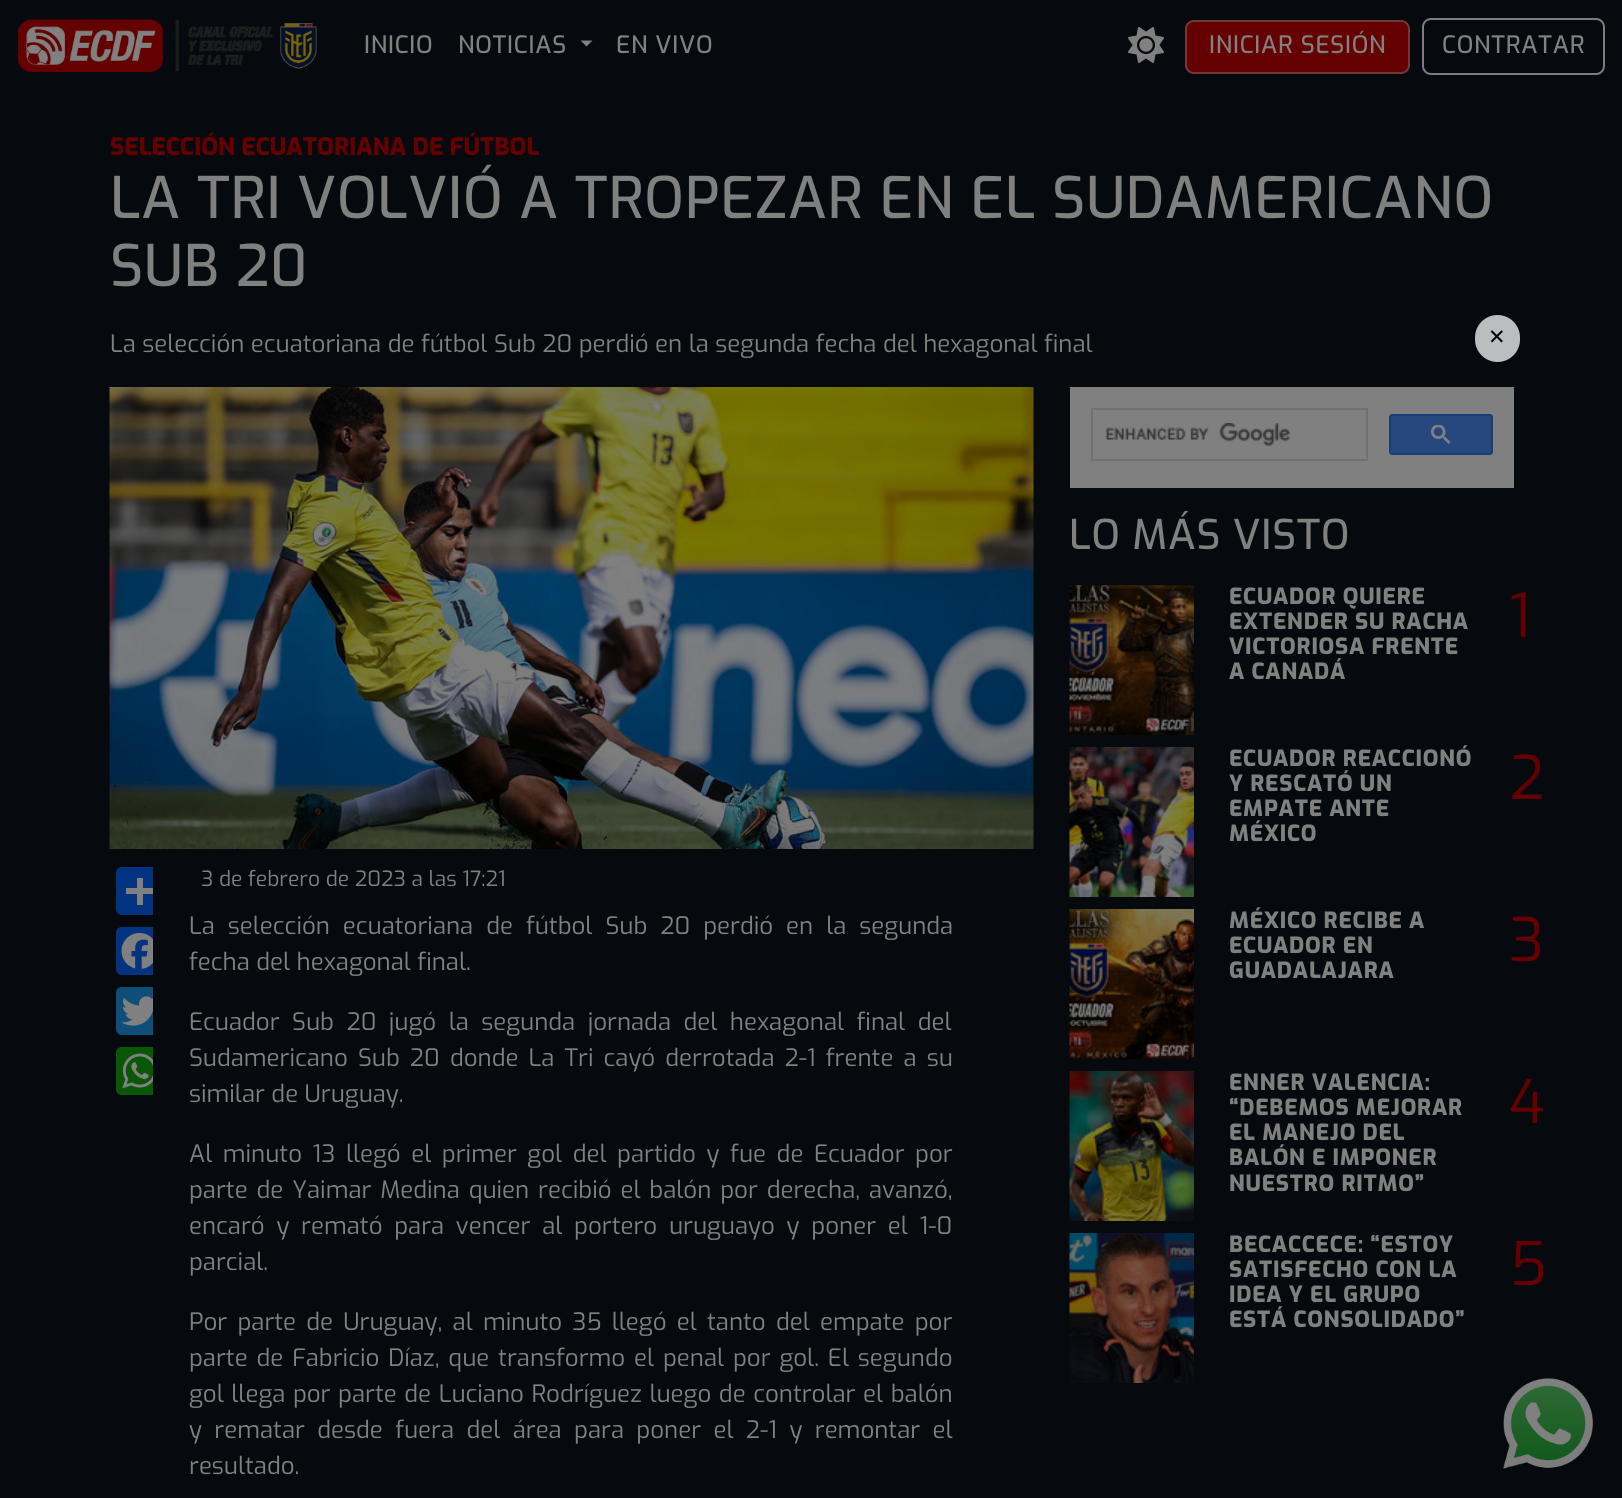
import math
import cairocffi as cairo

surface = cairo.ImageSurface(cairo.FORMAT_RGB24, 1622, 1498)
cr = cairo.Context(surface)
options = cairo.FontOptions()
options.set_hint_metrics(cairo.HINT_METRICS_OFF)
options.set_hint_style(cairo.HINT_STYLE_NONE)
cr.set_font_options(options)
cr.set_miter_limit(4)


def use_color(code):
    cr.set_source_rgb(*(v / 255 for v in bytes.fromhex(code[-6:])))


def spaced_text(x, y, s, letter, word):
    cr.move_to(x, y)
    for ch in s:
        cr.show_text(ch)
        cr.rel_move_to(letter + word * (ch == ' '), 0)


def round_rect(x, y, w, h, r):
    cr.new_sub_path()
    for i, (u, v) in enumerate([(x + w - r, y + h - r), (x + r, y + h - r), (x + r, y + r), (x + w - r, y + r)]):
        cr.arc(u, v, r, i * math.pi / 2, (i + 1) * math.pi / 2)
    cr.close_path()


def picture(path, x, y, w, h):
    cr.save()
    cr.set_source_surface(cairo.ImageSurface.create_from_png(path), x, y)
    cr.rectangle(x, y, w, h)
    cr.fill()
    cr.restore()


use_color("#06090e")
cr.paint()
picture("img1.png", 18, 19, 299, 53)
cr.select_font_face("Exo Medium")
cr.set_font_size(24)
use_color("#808080")
spaced_text(364, 53, "INICIO", 0.75, 0)
spaced_text(458, 53, "NOTICIAS", 0.75, 0)
cr.new_path()
cr.move_to(580.5, 40.5)
cr.line_to(592.5, 40.5)
cr.line_to(586.5, 46.5)
cr.close_path()
cr.fill()
spaced_text(616, 53, "EN VIVO", 0.75, 0)
picture("img2.png", 1128, 27, 36, 36)
use_color("#640000")
round_rect(1185, 20, 225, 54, 9)
cr.fill()
round_rect(1186, 21, 223, 52, 8)
cr.set_source_rgba(0.502, 0.502, 0.502, 0.45)
cr.stroke()
use_color("#808080")
spaced_text(1209, 53, "INICIAR SESIÓN", 0.75, 0)
round_rect(1423, 19, 181, 55, 8)
use_color("#7c7d7d")
cr.stroke()
use_color("#808080")
spaced_text(1442, 53, "CONTRATAR", 0.75, 0)
cr.select_font_face("Exo ExtraBold")
use_color("#640000")
cr.move_to(110, 155)
cr.show_text("SELECCIÓN ECUATORIANA DE FÚTBOL")
cr.select_font_face("Exo Medium")
cr.set_font_size(57.3)
use_color("#808080")
spaced_text(110, 218, "LA TRI VOLVIÓ A TROPEZAR EN EL SUDAMERICANO", 0.75, 0)
spaced_text(110, 286, "SUB 20", 0.75, 0)
cr.select_font_face("Exo")
cr.set_font_size(24)
cr.move_to(110, 352)
cr.show_text("La selección ecuatoriana de fútbol Sub 20 perdió en la segunda fecha del hexagonal final")
picture("img3.png", 109, 387, 925, 462)
use_color("#013380")
cr.new_path()
cr.move_to(122, 867)
cr.line_to(153, 867)
cr.line_to(153, 915)
cr.line_to(122, 915)
cr.curve_to(118.5, 915, 116, 912.5, 116, 909)
cr.line_to(116, 873)
cr.curve_to(116, 869.5, 118.5, 867, 122, 867)
cr.close_path()
cr.fill()
use_color("#808080")
cr.rectangle(137, 878, 6, 27)
cr.fill()
cr.rectangle(126, 888, 27, 6)
cr.fill()
use_color("#043380")
cr.new_path()
cr.move_to(122, 927)
cr.line_to(153, 927)
cr.line_to(153, 975)
cr.line_to(122, 975)
cr.curve_to(118.5, 975, 116, 972.5, 116, 969)
cr.line_to(116, 933)
cr.curve_to(116, 929.5, 118.5, 927, 122, 927)
cr.close_path()
cr.fill()
picture("img4.png", 121, 933, 32, 36)
use_color("#0f4e78")
cr.new_path()
cr.move_to(122, 987)
cr.line_to(153, 987)
cr.line_to(153, 1035)
cr.line_to(122, 1035)
cr.curve_to(118.5, 1035, 116, 1032.5, 116, 1029)
cr.line_to(116, 993)
cr.curve_to(116, 989.5, 118.5, 987, 122, 987)
cr.close_path()
cr.fill()
picture("img5.png", 121, 996, 32, 30)
use_color("#095805")
cr.new_path()
cr.move_to(122, 1047)
cr.line_to(153, 1047)
cr.line_to(153, 1095)
cr.line_to(122, 1095)
cr.curve_to(118.5, 1095, 116, 1092.5, 116, 1089)
cr.line_to(116, 1053)
cr.curve_to(116, 1049.5, 118.5, 1047, 122, 1047)
cr.close_path()
cr.fill()
picture("img6.png", 122, 1053, 31, 36)
cr.set_font_size(21)
use_color("#808080")
cr.move_to(201, 886)
cr.show_text("3 de febrero de 2023 a las 17:21")
cr.set_font_size(24)
spaced_text(189, 934, "La selección ecuatoriana de fútbol Sub 20 perdió en la segunda", 0, 6.5)
cr.move_to(189, 970)
cr.show_text("fecha del hexagonal final.")
spaced_text(189, 1030, "Ecuador Sub 20 jugó la segunda jornada del hexagonal final del", 0, 6)
spaced_text(189, 1066, "Sudamericano Sub 20 donde La Tri cayó derrotada 2-1 frente a su", 0, 3.6)
cr.move_to(189, 1102)
cr.show_text("similar de Uruguay.")
spaced_text(189, 1162, "Al minuto 13 llegó el primer gol del partido y fue de Ecuador por", 0, 4.1)
spaced_text(189, 1198, "parte de Yaimar Medina quien recibió el balón por derecha, avanzó,", 0, 2.4)
spaced_text(189, 1234, "encaró y remató para vencer al portero uruguayo y poner el 1-0", 0, 5.25)
cr.move_to(189, 1270)
cr.show_text("parcial.")
spaced_text(189, 1330, "Por parte de Uruguay, al minuto 35 llegó el tanto del empate por", 0, 3.75)
spaced_text(189, 1366, "parte de Fabricio Díaz, que transformo el penal por gol. El segundo", 0, 2.4)
spaced_text(189, 1402, "gol llega por parte de Luciano Rodríguez luego de controlar el balón", 0, 1.1)
spaced_text(189, 1438, "y rematar desde fuera del área para poner el 2-1 y remontar el", 0, 5.9)
cr.move_to(189, 1474)
cr.show_text("resultado.")
cr.rectangle(1070, 387, 444, 101)
cr.fill()
cr.rectangle(1092, 409, 275, 51)
use_color("#707173")
cr.stroke()
picture("img7.png", 1105, 423, 185, 23)
use_color("#27487f")
round_rect(1390, 415, 102, 39, 2)
cr.fill_preserve()
use_color("#183d77")
cr.stroke()
picture("img8.png", 1431, 425, 20, 19)
cr.select_font_face("Exo Medium")
cr.set_font_size(41)
use_color("#808080")
spaced_text(1069, 549, "LO MÁS VISTO", 0.75, 0)
picture("img9.png", 1069, 585, 125, 150)
cr.select_font_face("Exo ExtraBold")
cr.set_font_size(22.25)
spaced_text(1229, 604, "ECUADOR QUIERE", 0.75, 0)
spaced_text(1229, 629, "EXTENDER SU RACHA", 0.75, 0)
spaced_text(1229, 654, "VICTORIOSA FRENTE", 0.75, 0)
spaced_text(1229, 679, "A CANADÁ", 0.75, 0)
cr.select_font_face("Exo")
cr.set_font_size(60)
use_color("#640000")
cr.move_to(1509, 637)
cr.show_text("1")
picture("img10.png", 1069, 747, 125, 150)
cr.select_font_face("Exo ExtraBold")
cr.set_font_size(22.25)
use_color("#808080")
spaced_text(1229, 766, "ECUADOR REACCIONÓ", 0.75, 0)
spaced_text(1229, 791, "Y RESCATÓ UN", 0.75, 0)
spaced_text(1229, 816, "EMPATE ANTE", 0.75, 0)
spaced_text(1229, 841, "MÉXICO", 0.75, 0)
cr.select_font_face("Exo")
cr.set_font_size(60)
use_color("#640000")
cr.move_to(1509, 799)
cr.show_text("2")
picture("img11.png", 1069, 909, 125, 150)
cr.select_font_face("Exo ExtraBold")
cr.set_font_size(22.25)
use_color("#808080")
spaced_text(1229, 928, "MÉXICO RECIBE A", 0.75, 0)
spaced_text(1229, 953, "ECUADOR EN", 0.75, 0)
spaced_text(1229, 978, "GUADALAJARA", 0.75, 0)
cr.select_font_face("Exo")
cr.set_font_size(60)
use_color("#640000")
cr.move_to(1509, 961)
cr.show_text("3")
picture("img12.png", 1069, 1071, 125, 150)
cr.select_font_face("Exo ExtraBold")
cr.set_font_size(22.25)
use_color("#808080")
spaced_text(1229, 1090, "ENNER VALENCIA:", 0.75, 0)
spaced_text(1229, 1115, "“DEBEMOS MEJORAR", 0.75, 0)
spaced_text(1229, 1140, "EL MANEJO DEL", 0.75, 0)
spaced_text(1229, 1165, "BALÓN E IMPONER", 0.75, 0)
spaced_text(1229, 1191, "NUESTRO RITMO”", 0.75, 0)
cr.select_font_face("Exo")
cr.set_font_size(60)
use_color("#640000")
cr.move_to(1509, 1123)
cr.show_text("4")
picture("img13.png", 1069, 1233, 125, 150)
cr.select_font_face("Exo ExtraBold")
cr.set_font_size(22.25)
use_color("#808080")
spaced_text(1229, 1252, "BECACCECE: “ESTOY", 0.75, 0)
spaced_text(1229, 1277, "SATISFECHO CON LA", 0.75, 0)
spaced_text(1229, 1302, "IDEA Y EL GRUPO", 0.75, 0)
spaced_text(1229, 1327, "ESTÁ CONSOLIDADO”", 0.75, 0)
cr.select_font_face("Exo")
cr.set_font_size(60)
use_color("#640000")
cr.move_to(1509, 1285)
cr.show_text("5")
use_color("#bcbdbf")
round_rect(1476, 316, 43, 45, 21.5)
cr.fill_preserve()
cr.stroke()
cr.select_font_face("DejaVu Sans")
cr.set_font_size(21)
use_color("#020203")
spaced_text(1488, 344, "✕", 0.75, 0)
picture("img14.png", 1503, 1378, 90, 91)
surface.write_to_png("result.png")
